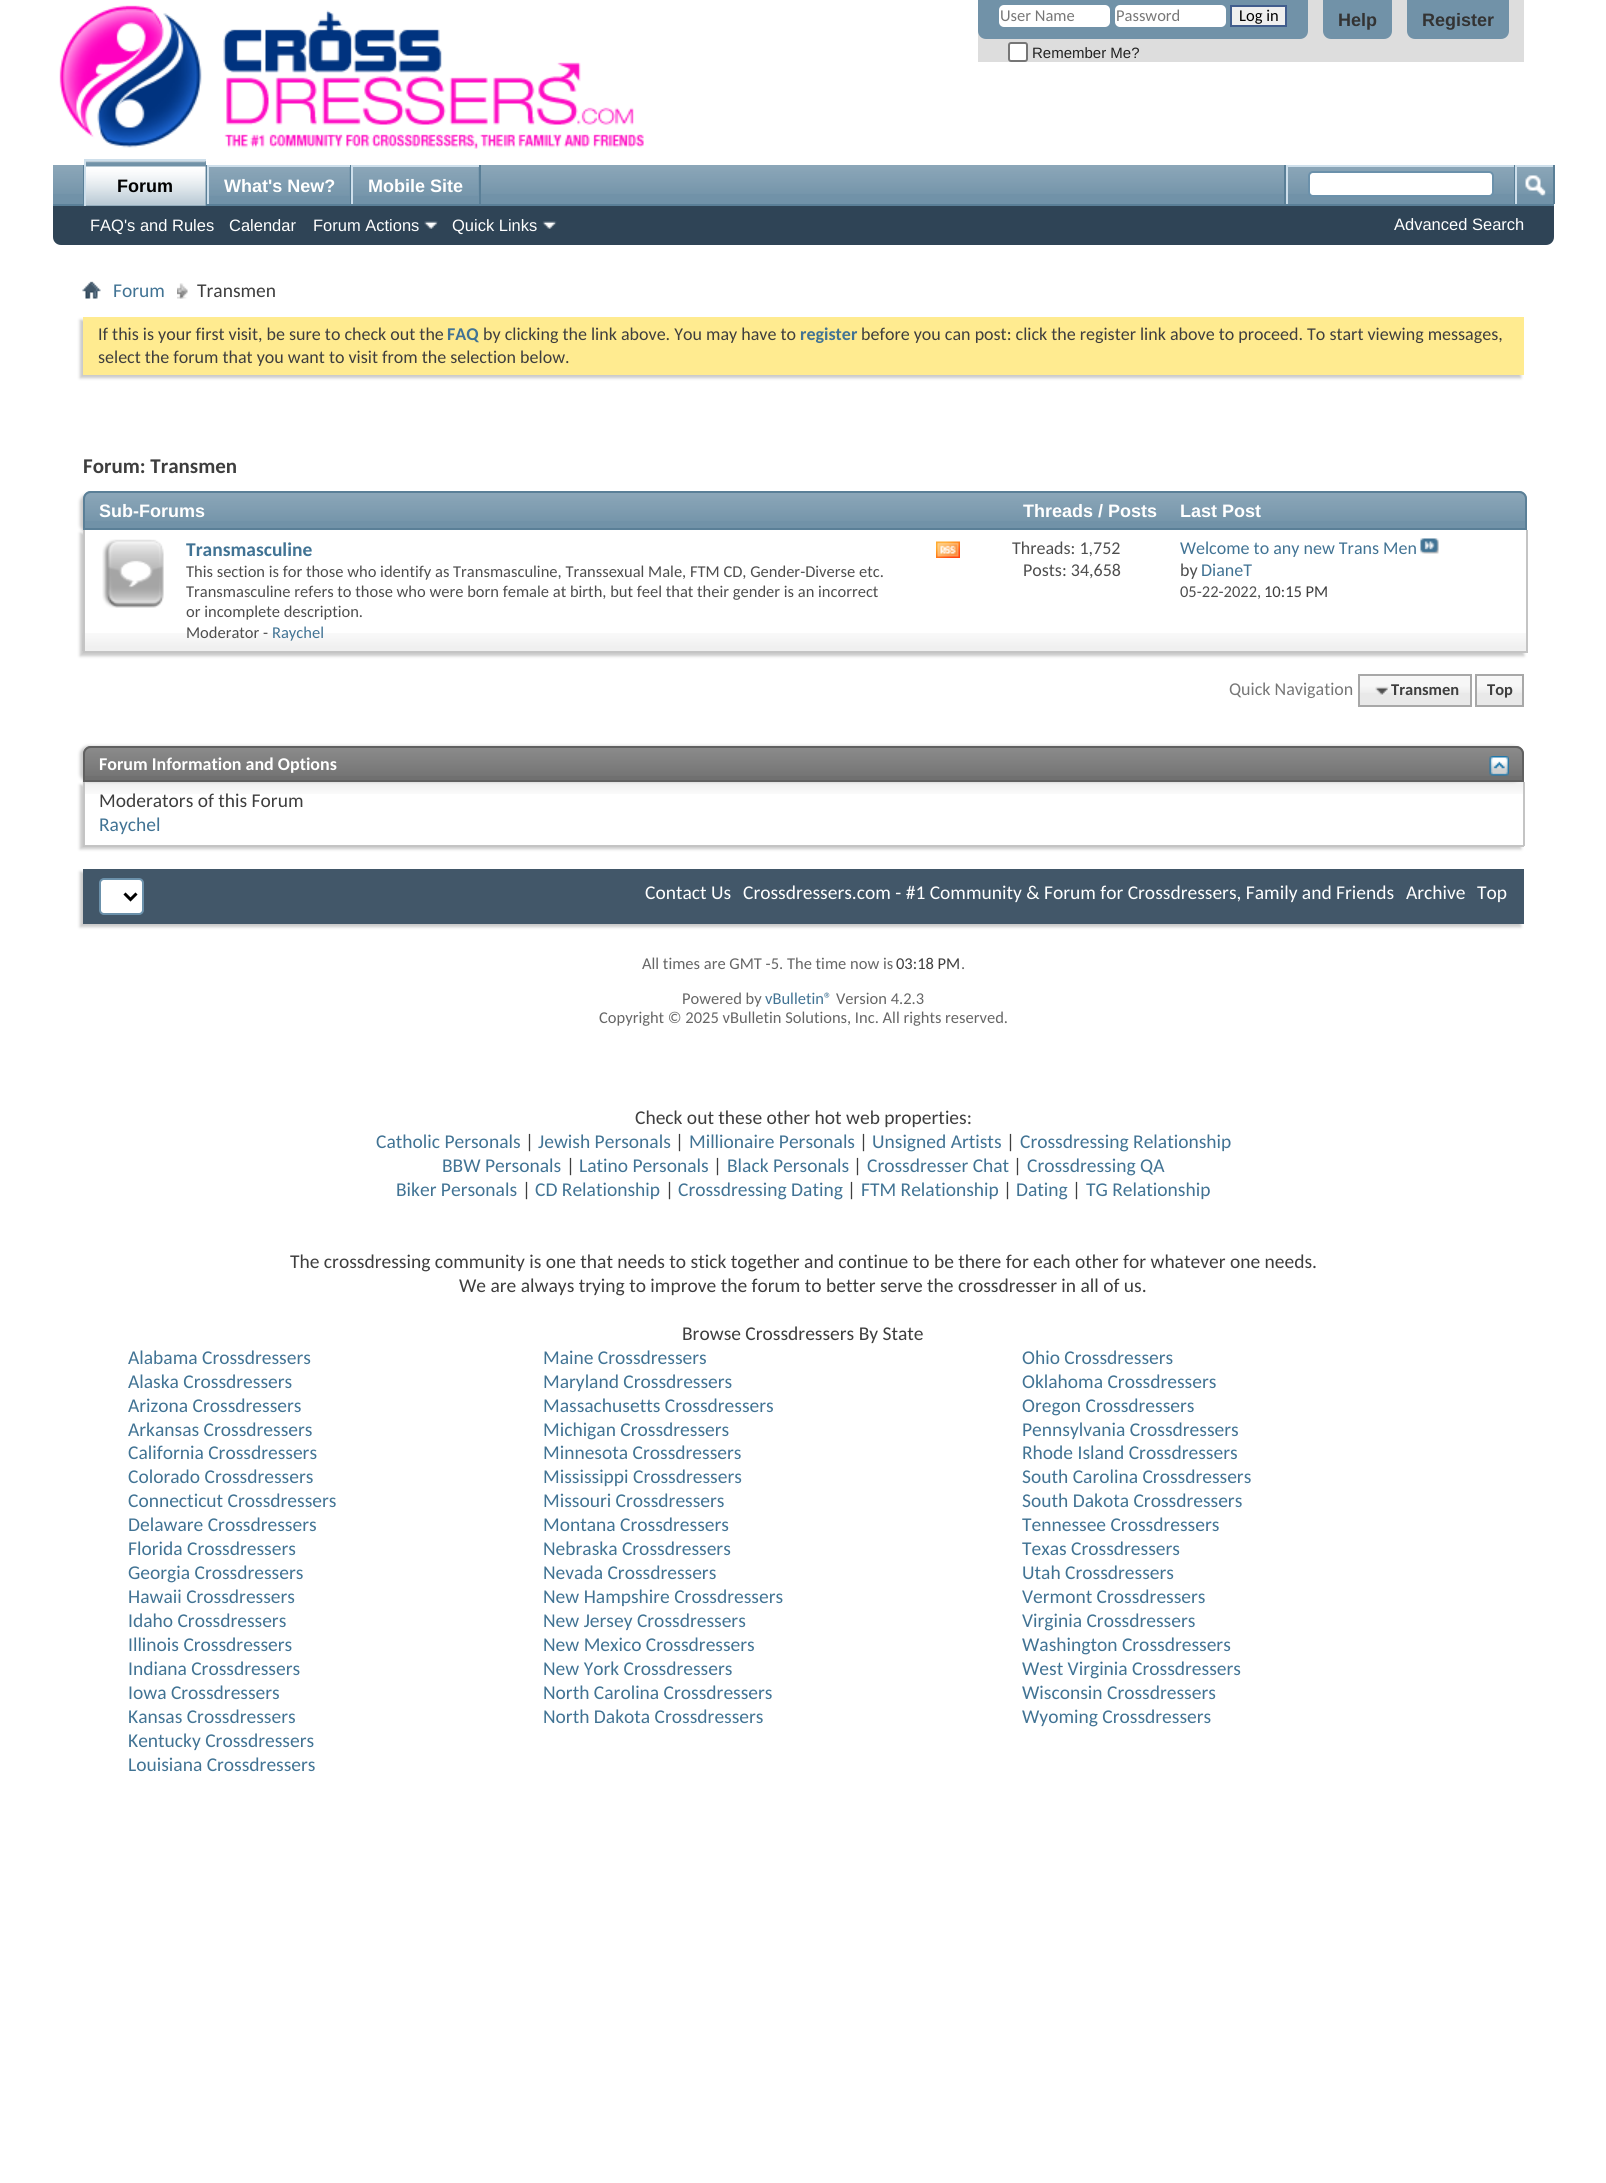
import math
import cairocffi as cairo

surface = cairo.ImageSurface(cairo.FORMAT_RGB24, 1606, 2183)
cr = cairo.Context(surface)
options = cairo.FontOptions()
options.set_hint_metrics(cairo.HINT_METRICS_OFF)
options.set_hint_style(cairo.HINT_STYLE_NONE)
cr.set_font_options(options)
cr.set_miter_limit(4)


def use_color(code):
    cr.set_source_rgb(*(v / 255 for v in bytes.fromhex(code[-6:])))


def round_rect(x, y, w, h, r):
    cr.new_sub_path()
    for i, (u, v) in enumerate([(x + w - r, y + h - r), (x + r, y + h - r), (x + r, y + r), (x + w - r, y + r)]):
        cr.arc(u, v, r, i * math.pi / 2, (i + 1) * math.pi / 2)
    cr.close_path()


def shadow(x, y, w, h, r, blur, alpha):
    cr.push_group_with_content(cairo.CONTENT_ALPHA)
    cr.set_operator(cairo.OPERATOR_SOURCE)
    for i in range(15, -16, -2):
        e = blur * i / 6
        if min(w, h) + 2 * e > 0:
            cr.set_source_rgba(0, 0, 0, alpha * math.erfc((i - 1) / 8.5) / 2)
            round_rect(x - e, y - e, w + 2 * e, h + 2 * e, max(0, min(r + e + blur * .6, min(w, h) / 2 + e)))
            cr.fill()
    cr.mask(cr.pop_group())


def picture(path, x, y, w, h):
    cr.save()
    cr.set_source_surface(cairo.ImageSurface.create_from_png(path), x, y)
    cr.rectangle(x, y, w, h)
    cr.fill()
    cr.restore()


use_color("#ffffff")
cr.paint()
picture("img1.png", 59, 5, 585, 144)
use_color("#dddddd")
cr.rectangle(978, 0, 546, 62)
cr.fill()
use_color("#7192a8")
cr.new_path()
cr.move_to(978, 0)
cr.line_to(1308, 0)
cr.line_to(1308, 31)
cr.curve_to(1308, 35.5, 1304.5, 39, 1300, 39)
cr.line_to(986, 39)
cr.curve_to(981.5, 39, 978, 35.5, 978, 31)
cr.close_path()
cr.fill()
use_color("#ffffff")
round_rect(999, 5, 111, 22, 5)
cr.fill()
cr.select_font_face("Carlito")
cr.set_font_size(16.5)
use_color("#777777")
cr.move_to(1000, 21)
cr.show_text("User Name")
use_color("#ffffff")
round_rect(1115, 5, 111, 22, 5)
cr.fill()
use_color("#777777")
cr.move_to(1116, 21)
cr.show_text("Password")
use_color("#efefef")
cr.rectangle(1231, 6, 55, 20)
cr.fill_preserve()
use_color("#415d8d")
cr.stroke()
use_color("#000000")
cr.move_to(1239, 21)
cr.show_text("Log in")
use_color("#ffffff")
round_rect(1009, 43, 18, 18, 2)
cr.fill_preserve()
use_color("#767676")
cr.stroke()
cr.select_font_face("Liberation Sans")
cr.set_font_size(15)
use_color("#222222")
cr.move_to(1032, 58)
cr.show_text("Remember Me?")
use_color("#7192a8")
cr.new_path()
cr.move_to(1323, 0)
cr.line_to(1392, 0)
cr.line_to(1392, 31)
cr.curve_to(1392, 35.5, 1388.5, 39, 1384, 39)
cr.line_to(1331, 39)
cr.curve_to(1326.5, 39, 1323, 35.5, 1323, 31)
cr.close_path()
cr.fill()
cr.select_font_face("Liberation Sans", cairo.FONT_SLANT_NORMAL, cairo.FONT_WEIGHT_BOLD)
cr.set_font_size(18)
use_color("#333333")
cr.move_to(1338, 26)
cr.show_text("Help")
use_color("#7192a8")
cr.new_path()
cr.move_to(1407, 0)
cr.line_to(1509, 0)
cr.line_to(1509, 31)
cr.curve_to(1509, 35.5, 1505.5, 39, 1501, 39)
cr.line_to(1415, 39)
cr.curve_to(1410.5, 39, 1407, 35.5, 1407, 31)
cr.close_path()
cr.fill()
use_color("#333333")
cr.move_to(1422, 26)
cr.show_text("Register")
use_color("#2f4456")
cr.new_path()
cr.move_to(53, 165)
cr.line_to(1554, 165)
cr.line_to(1554, 237)
cr.curve_to(1554, 241.5, 1550.5, 245, 1546, 245)
cr.line_to(61, 245)
cr.curve_to(56.5, 245, 53, 241.5, 53, 237)
cr.close_path()
cr.fill()
use_color("#7192a8")
cr.rectangle(53, 165, 1500, 39)
cr.fill()
picture("img2.png", 53, 165, 1500, 29)
use_color("#5a7f97")
cr.rectangle(206, 165, 1, 39)
cr.fill()
cr.rectangle(83, 165, 1, 39)
cr.fill()
cr.rectangle(350, 165, 1, 41)
cr.fill()
use_color("#cedfeb")
cr.rectangle(207, 165, 143, 2)
cr.fill()
cr.rectangle(207, 165, 2, 41)
cr.fill()
use_color("#5a7f97")
cr.rectangle(479, 165, 2, 41)
cr.fill()
use_color("#cedfeb")
cr.rectangle(351, 165, 128, 2)
cr.fill()
cr.rectangle(351, 165, 2, 41)
cr.fill()
use_color("#5a7f97")
cr.rectangle(53, 204, 1501, 2)
cr.fill()
use_color("#7192a8")
cr.rectangle(86, 161, 120, 45)
cr.fill()
picture("img3.png", 86, 161, 120, 45)
use_color("#cedfeb")
cr.rectangle(84, 159, 122, 2)
cr.fill()
cr.rectangle(84, 159, 2, 47)
cr.fill()
use_color("#000000")
cr.move_to(117, 192)
cr.show_text("Forum")
use_color("#7192a8")
cr.rectangle(209, 167, 141, 27)
cr.fill()
picture("img4.png", 209, 167, 141, 29)
use_color("#ffffff")
cr.move_to(224, 192)
cr.show_text("What's New?")
use_color("#7192a8")
cr.rectangle(353, 167, 126, 27)
cr.fill()
picture("img5.png", 353, 167, 126, 29)
use_color("#ffffff")
cr.move_to(368, 192)
cr.show_text("Mobile Site")
cr.select_font_face("Liberation Sans")
cr.set_font_size(16.5)
cr.move_to(90, 231)
cr.show_text("FAQ's and Rules")
cr.move_to(229, 231)
cr.show_text("Calendar")
cr.move_to(313, 231)
cr.show_text("Forum Actions")
picture("img6.png", 424, 221, 14, 8)
cr.move_to(452, 231)
cr.show_text("Quick Links")
picture("img7.png", 542, 221, 15, 8)
use_color("#5a7f97")
cr.rectangle(1284, 165, 2, 39)
cr.fill()
use_color("#cedfeb")
cr.rectangle(1286, 165, 228, 2)
cr.fill()
cr.rectangle(1286, 165, 2, 39)
cr.fill()
use_color("#ffffff")
round_rect(1309, 172, 184, 24, 4)
cr.fill_preserve()
use_color("#6b91ab")
cr.stroke()
use_color("#5a7f97")
cr.rectangle(1553, 165, 2, 39)
cr.fill()
cr.rectangle(1514, 165, 1, 39)
cr.fill()
use_color("#cedfeb")
cr.rectangle(1515, 165, 38, 2)
cr.fill()
cr.rectangle(1515, 165, 2, 39)
cr.fill()
picture("img8.png", 1525, 175, 21, 22)
use_color("#ffffff")
cr.move_to(1394, 230)
cr.show_text("Advanced Search")
picture("img9.png", 82, 281, 19, 18)
picture("img10.png", 177, 283, 11, 16)
cr.select_font_face("Carlito")
cr.set_font_size(19.5)
use_color("#417394")
cr.move_to(113, 297)
cr.show_text("Forum")
use_color("#3e3e3e")
cr.move_to(197, 297)
cr.show_text("Transmen")
use_color("#c8c8c8")
shadow(80, 320, 1441, 58, 0, 1.5, 1)
use_color("#ffeb90")
cr.rectangle(83, 317, 1441, 58)
cr.fill()
cr.set_font_size(18)
use_color("#3e3e3e")
cr.move_to(98, 340)
cr.show_text("If this is your first visit, be sure to check out the")
cr.select_font_face("Carlito", cairo.FONT_SLANT_NORMAL, cairo.FONT_WEIGHT_BOLD)
use_color("#417394")
cr.move_to(447, 340)
cr.show_text("FAQ")
cr.select_font_face("Carlito")
use_color("#3e3e3e")
cr.move_to(483, 340)
cr.show_text("by clicking the link above. You may have to")
cr.select_font_face("Carlito", cairo.FONT_SLANT_NORMAL, cairo.FONT_WEIGHT_BOLD)
use_color("#417394")
cr.move_to(800, 340)
cr.show_text("register")
cr.select_font_face("Carlito")
use_color("#3e3e3e")
cr.move_to(861, 340)
cr.show_text("before you can post: click the register link above to proceed. To start viewing messages,")
cr.move_to(98, 363)
cr.show_text("select the forum that you want to visit from the selection below.")
cr.select_font_face("Carlito", cairo.FONT_SLANT_NORMAL, cairo.FONT_WEIGHT_BOLD)
cr.set_font_size(21)
cr.move_to(83, 473)
cr.show_text("Forum: Transmen")
use_color("#c8c8c8")
shadow(80, 494, 1444, 39, 8, 1.5, 1)
use_color("#7192a8")
cr.new_path()
cr.move_to(91, 491)
cr.line_to(1519, 491)
cr.curve_to(1523.5, 491, 1527, 494.5, 1527, 499)
cr.line_to(1527, 530)
cr.line_to(83, 530)
cr.line_to(83, 499)
cr.curve_to(83, 494.5, 86.5, 491, 91, 491)
cr.close_path()
cr.fill()
picture("img11.png", 83, 492, 1444, 29)
cr.new_path()
cr.move_to(91, 492)
cr.line_to(1519, 492)
cr.curve_to(1523, 492, 1526, 495, 1526, 499)
cr.line_to(1526, 529)
cr.line_to(84, 529)
cr.line_to(84, 499)
cr.curve_to(84, 495, 87, 492, 91, 492)
cr.close_path()
use_color("#5a7f97")
cr.stroke()
cr.select_font_face("Liberation Sans", cairo.FONT_SLANT_NORMAL, cairo.FONT_WEIGHT_BOLD)
cr.set_font_size(18)
use_color("#ffffff")
cr.move_to(99, 517)
cr.show_text("Sub-Forums")
cr.move_to(1023, 517)
cr.show_text("Threads / Posts")
cr.move_to(1180, 517)
cr.show_text("Last Post")
use_color("#c8c8c8")
shadow(80, 533, 1444, 123, 0, 1.5, 1)
use_color("#ffffff")
cr.rectangle(85, 530, 1441, 121)
cr.fill()
picture("img12.png", 82, 633, 1444, 18)
use_color("#c4c4c4")
cr.rectangle(1526, 530, 2, 123)
cr.fill()
cr.rectangle(83, 651, 1444, 2)
cr.fill()
cr.rectangle(83, 530, 2, 123)
cr.fill()
picture("img13.png", 102, 539, 62, 69)
cr.select_font_face("Carlito", cairo.FONT_SLANT_NORMAL, cairo.FONT_WEIGHT_BOLD)
cr.set_font_size(19.5)
use_color("#417394")
cr.move_to(186, 556)
cr.show_text("Transmasculine")
cr.select_font_face("Carlito")
cr.set_font_size(16.5)
use_color("#4e4e4e")
cr.move_to(186, 577)
cr.show_text("This section is for those who identify as Transmasculine, Transsexual Male, FTM CD, Gender-Diverse etc.")
cr.move_to(186, 597)
cr.show_text("Transmasculine refers to those who were born female at birth, but feel that their gender is an incorrect")
cr.move_to(186, 617)
cr.show_text("or incomplete description.")
cr.move_to(186, 638)
cr.show_text("Moderator -")
use_color("#417394")
cr.move_to(272, 638)
cr.show_text("Raychel")
picture("img14.png", 936, 541, 24, 17)
cr.set_font_size(18)
use_color("#4e4e4e")
cr.move_to(1012, 554)
cr.show_text("Threads: 1,752")
cr.move_to(1023, 576)
cr.show_text("Posts: 34,658")
use_color("#417394")
cr.move_to(1180, 554)
cr.show_text("Welcome to any new Trans Men")
picture("img15.png", 1420, 538, 19, 16)
use_color("#4e4e4e")
cr.move_to(1180, 576)
cr.show_text("by")
use_color("#417394")
cr.move_to(1201, 576)
cr.show_text("DianeT")
cr.set_font_size(16.5)
use_color("#4e4e4e")
cr.move_to(1180, 597)
cr.show_text("05-22-2022,")
use_color("#3e3e3e")
cr.move_to(1264, 597)
cr.show_text("10:15 PM")
cr.set_font_size(18)
use_color("#777777")
cr.move_to(1229, 695)
cr.show_text("Quick Navigation")
use_color("#e9e9e9")
cr.rectangle(1360, 676, 110, 29)
cr.fill()
picture("img16.png", 1360, 676, 110, 17)
cr.rectangle(1477, 676, 45, 29)
cr.fill()
picture("img17.png", 1477, 676, 45, 17)
cr.rectangle(1359, 675, 112, 31)
use_color("#a8a8a8")
cr.stroke()
picture("img18.png", 1375, 686, 14, 10)
cr.select_font_face("Carlito", cairo.FONT_SLANT_NORMAL, cairo.FONT_WEIGHT_BOLD)
cr.set_font_size(16.5)
use_color("#3e3e3e")
cr.move_to(1391, 695)
cr.show_text("Transmen")
cr.rectangle(1476, 675, 47, 31)
use_color("#a8a8a8")
cr.stroke()
use_color("#3e3e3e")
cr.move_to(1487, 695)
cr.show_text("Top")
cr.save()
cr.set_fill_rule(cairo.FILL_RULE_EVEN_ODD)
cr.new_path()
cr.move_to(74, 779)
cr.line_to(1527, 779)
cr.line_to(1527, 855)
cr.line_to(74, 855)
cr.close_path()
cr.move_to(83, 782)
cr.line_to(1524, 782)
cr.line_to(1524, 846)
cr.line_to(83, 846)
cr.close_path()
cr.clip()
use_color("#c8c8c8")
shadow(80, 785, 1441, 64, 0, 1.5, 1)
cr.restore()
picture("img21.png", 82, 781, 1441, 13)
use_color("#c4c4c4")
cr.rectangle(1523, 782, 2, 64)
cr.fill()
cr.rectangle(83, 845, 1441, 2)
cr.fill()
cr.rectangle(83, 782, 2, 64)
cr.fill()
use_color("#c8c8c8")
shadow(80, 746, 1441, 36, 8, 1.5, 1)
use_color("#707070")
cr.new_path()
cr.move_to(91, 746)
cr.line_to(1516, 746)
cr.curve_to(1520.5, 746, 1524, 749.5, 1524, 754)
cr.line_to(1524, 782)
cr.line_to(83, 782)
cr.line_to(83, 754)
cr.curve_to(83, 749.5, 86.5, 746, 91, 746)
cr.close_path()
cr.fill()
picture("img19.png", 83, 747, 1441, 29)
cr.new_path()
cr.move_to(91, 747)
cr.line_to(1516, 747)
cr.curve_to(1520, 747, 1523, 750, 1523, 754)
cr.line_to(1523, 781)
cr.line_to(84, 781)
cr.line_to(84, 754)
cr.curve_to(84, 750, 87, 747, 91, 747)
cr.close_path()
use_color("#606060")
cr.stroke()
cr.set_font_size(18)
use_color("#ffffff")
cr.move_to(99, 770)
cr.show_text("Forum Information and Options")
picture("img20.png", 1489, 756, 20, 20)
cr.select_font_face("Carlito")
cr.set_font_size(19.5)
use_color("#3e3e3e")
cr.move_to(99, 807)
cr.show_text("Moderators of this Forum")
use_color("#417394")
cr.move_to(99, 831)
cr.show_text("Raychel")
use_color("#c8c8c8")
shadow(80, 872, 1441, 55, 0, 1.5, 1)
use_color("#425769")
cr.rectangle(83, 869, 1441, 55)
cr.fill()
use_color("#ffffff")
round_rect(100, 879, 43, 35, 4)
cr.fill_preserve()
use_color("#6b91ab")
cr.stroke()
cr.new_path()
cr.move_to(124.5, 893.5)
cr.line_to(130.5, 899.5)
cr.line_to(136.5, 893.5)
use_color("#000000")
cr.set_line_width(3)
cr.stroke()
use_color("#ffffff")
cr.move_to(645, 899)
cr.show_text("Contact Us")
cr.move_to(743, 899)
cr.show_text("Crossdressers.com - #1 Community & Forum for Crossdressers, Family and Friends")
cr.move_to(1406, 899)
cr.show_text("Archive")
cr.move_to(1477, 899)
cr.show_text("Top")
cr.set_font_size(16.5)
use_color("#666666")
cr.move_to(642, 969)
cr.show_text("All times are GMT -5. The time now is")
use_color("#3e3e3e")
cr.move_to(896, 969)
cr.show_text("03:18 PM")
use_color("#666666")
cr.move_to(961, 969)
cr.show_text(".")
cr.move_to(682, 1004)
cr.show_text("Powered by")
use_color("#417394")
cr.move_to(765, 1004)
cr.show_text("vBulletin®")
use_color("#666666")
cr.move_to(836, 1004)
cr.show_text("Version 4.2.3")
cr.move_to(599, 1023)
cr.show_text("Copyright © 2025 vBulletin Solutions, Inc. All rights reserved.")
cr.set_font_size(19.5)
use_color("#3e3e3e")
cr.move_to(635, 1124)
cr.show_text("Check out these other hot web properties:")
use_color("#417394")
cr.move_to(376, 1148)
cr.show_text("Catholic Personals")
use_color("#3e3e3e")
cr.move_to(525, 1148)
cr.show_text("|")
use_color("#417394")
cr.move_to(538, 1148)
cr.show_text("Jewish Personals")
use_color("#3e3e3e")
cr.move_to(675, 1148)
cr.show_text("|")
use_color("#417394")
cr.move_to(689, 1148)
cr.show_text("Millionaire Personals")
use_color("#3e3e3e")
cr.move_to(859, 1148)
cr.show_text("|")
use_color("#417394")
cr.move_to(872, 1148)
cr.show_text("Unsigned Artists")
use_color("#3e3e3e")
cr.move_to(1006, 1148)
cr.show_text("|")
use_color("#417394")
cr.move_to(1020, 1148)
cr.show_text("Crossdressing Relationship")
cr.move_to(442, 1172)
cr.show_text("BBW Personals")
use_color("#3e3e3e")
cr.move_to(566, 1172)
cr.show_text("|")
use_color("#417394")
cr.move_to(579, 1172)
cr.show_text("Latino Personals")
use_color("#3e3e3e")
cr.move_to(713, 1172)
cr.show_text("|")
use_color("#417394")
cr.move_to(727, 1172)
cr.show_text("Black Personals")
use_color("#3e3e3e")
cr.move_to(853, 1172)
cr.show_text("|")
use_color("#417394")
cr.move_to(867, 1172)
cr.show_text("Crossdresser Chat")
use_color("#3e3e3e")
cr.move_to(1013, 1172)
cr.show_text("|")
use_color("#417394")
cr.move_to(1027, 1172)
cr.show_text("Crossdressing QA")
cr.move_to(396, 1196)
cr.show_text("Biker Personals")
use_color("#3e3e3e")
cr.move_to(522, 1196)
cr.show_text("|")
use_color("#417394")
cr.move_to(535, 1196)
cr.show_text("CD Relationship")
use_color("#3e3e3e")
cr.move_to(665, 1196)
cr.show_text("|")
use_color("#417394")
cr.move_to(678, 1196)
cr.show_text("Crossdressing Dating")
use_color("#3e3e3e")
cr.move_to(847, 1196)
cr.show_text("|")
use_color("#417394")
cr.move_to(861, 1196)
cr.show_text("FTM Relationship")
use_color("#3e3e3e")
cr.move_to(1003, 1196)
cr.show_text("|")
use_color("#417394")
cr.move_to(1016, 1196)
cr.show_text("Dating")
use_color("#3e3e3e")
cr.move_to(1072, 1196)
cr.show_text("|")
use_color("#417394")
cr.move_to(1086, 1196)
cr.show_text("TG Relationship")
use_color("#3e3e3e")
cr.move_to(290, 1268)
cr.show_text("The crossdressing community is one that needs to stick together and continue to be there for each other for whatever one needs.")
cr.move_to(459, 1292)
cr.show_text("We are always trying to improve the forum to better serve the crossdresser in all of us.")
cr.move_to(682, 1340)
cr.show_text("Browse Crossdressers By State")
use_color("#417394")
cr.move_to(128, 1364)
cr.show_text("Alabama Crossdressers")
cr.move_to(128, 1388)
cr.show_text("Alaska Crossdressers")
cr.move_to(128, 1412)
cr.show_text("Arizona Crossdressers")
cr.move_to(128, 1436)
cr.show_text("Arkansas Crossdressers")
cr.move_to(128, 1459)
cr.show_text("California Crossdressers")
cr.move_to(128, 1483)
cr.show_text("Colorado Crossdressers")
cr.move_to(128, 1507)
cr.show_text("Connecticut Crossdressers")
cr.move_to(128, 1531)
cr.show_text("Delaware Crossdressers")
cr.move_to(128, 1555)
cr.show_text("Florida Crossdressers")
cr.move_to(128, 1579)
cr.show_text("Georgia Crossdressers")
cr.move_to(128, 1603)
cr.show_text("Hawaii Crossdressers")
cr.move_to(128, 1627)
cr.show_text("Idaho Crossdressers")
cr.move_to(128, 1651)
cr.show_text("Illinois Crossdressers")
cr.move_to(128, 1675)
cr.show_text("Indiana Crossdressers")
cr.move_to(128, 1699)
cr.show_text("Iowa Crossdressers")
cr.move_to(128, 1723)
cr.show_text("Kansas Crossdressers")
cr.move_to(128, 1747)
cr.show_text("Kentucky Crossdressers")
cr.move_to(128, 1771)
cr.show_text("Louisiana Crossdressers")
cr.move_to(543, 1364)
cr.show_text("Maine Crossdressers")
cr.move_to(543, 1388)
cr.show_text("Maryland Crossdressers")
cr.move_to(543, 1412)
cr.show_text("Massachusetts Crossdressers")
cr.move_to(543, 1436)
cr.show_text("Michigan Crossdressers")
cr.move_to(543, 1459)
cr.show_text("Minnesota Crossdressers")
cr.move_to(543, 1483)
cr.show_text("Mississippi Crossdressers")
cr.move_to(543, 1507)
cr.show_text("Missouri Crossdressers")
cr.move_to(543, 1531)
cr.show_text("Montana Crossdressers")
cr.move_to(543, 1555)
cr.show_text("Nebraska Crossdressers")
cr.move_to(543, 1579)
cr.show_text("Nevada Crossdressers")
cr.move_to(543, 1603)
cr.show_text("New Hampshire Crossdressers")
cr.move_to(543, 1627)
cr.show_text("New Jersey Crossdressers")
cr.move_to(543, 1651)
cr.show_text("New Mexico Crossdressers")
cr.move_to(543, 1675)
cr.show_text("New York Crossdressers")
cr.move_to(543, 1699)
cr.show_text("North Carolina Crossdressers")
cr.move_to(543, 1723)
cr.show_text("North Dakota Crossdressers")
cr.move_to(1022, 1364)
cr.show_text("Ohio Crossdressers")
cr.move_to(1022, 1388)
cr.show_text("Oklahoma Crossdressers")
cr.move_to(1022, 1412)
cr.show_text("Oregon Crossdressers")
cr.move_to(1022, 1436)
cr.show_text("Pennsylvania Crossdressers")
cr.move_to(1022, 1459)
cr.show_text("Rhode Island Crossdressers")
cr.move_to(1022, 1483)
cr.show_text("South Carolina Crossdressers")
cr.move_to(1022, 1507)
cr.show_text("South Dakota Crossdressers")
cr.move_to(1022, 1531)
cr.show_text("Tennessee Crossdressers")
cr.move_to(1022, 1555)
cr.show_text("Texas Crossdressers")
cr.move_to(1022, 1579)
cr.show_text("Utah Crossdressers")
cr.move_to(1022, 1603)
cr.show_text("Vermont Crossdressers")
cr.move_to(1022, 1627)
cr.show_text("Virginia Crossdressers")
cr.move_to(1022, 1651)
cr.show_text("Washington Crossdressers")
cr.move_to(1022, 1675)
cr.show_text("West Virginia Crossdressers")
cr.move_to(1022, 1699)
cr.show_text("Wisconsin Crossdressers")
cr.move_to(1022, 1723)
cr.show_text("Wyoming Crossdressers")
surface.write_to_png("result.png")
